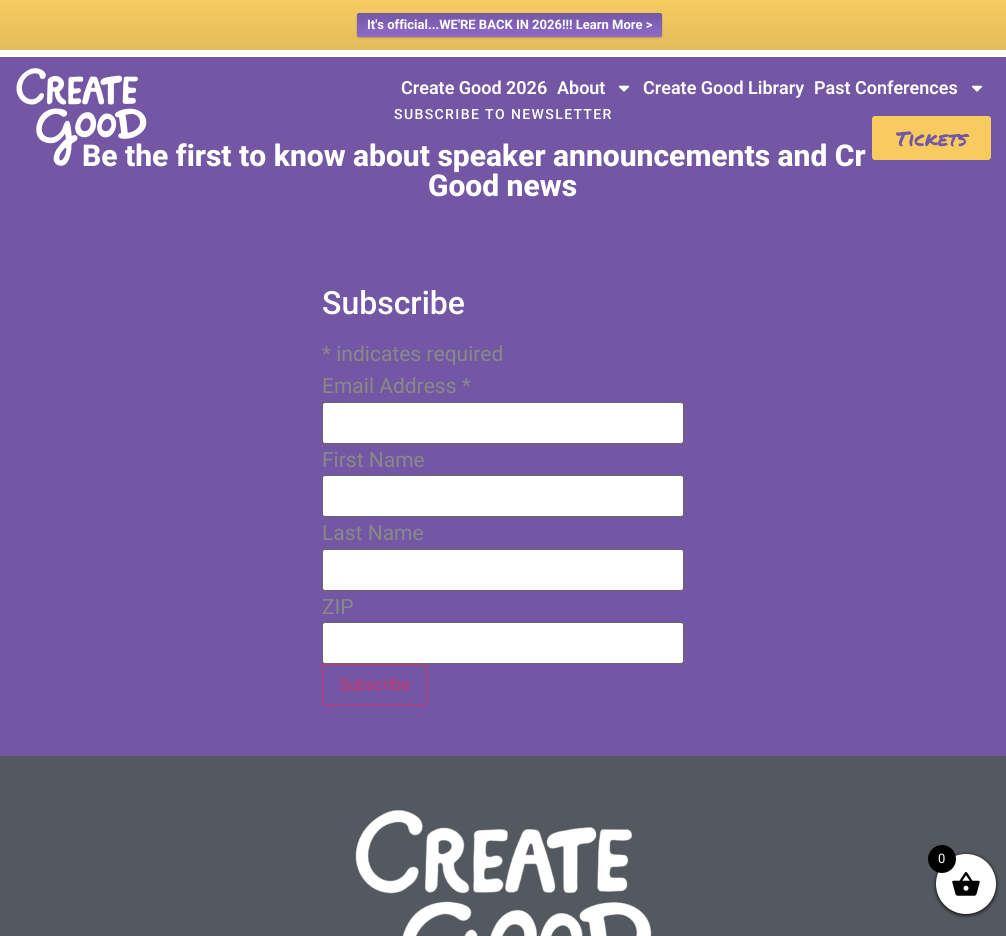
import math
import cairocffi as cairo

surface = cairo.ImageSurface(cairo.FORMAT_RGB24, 1006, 936)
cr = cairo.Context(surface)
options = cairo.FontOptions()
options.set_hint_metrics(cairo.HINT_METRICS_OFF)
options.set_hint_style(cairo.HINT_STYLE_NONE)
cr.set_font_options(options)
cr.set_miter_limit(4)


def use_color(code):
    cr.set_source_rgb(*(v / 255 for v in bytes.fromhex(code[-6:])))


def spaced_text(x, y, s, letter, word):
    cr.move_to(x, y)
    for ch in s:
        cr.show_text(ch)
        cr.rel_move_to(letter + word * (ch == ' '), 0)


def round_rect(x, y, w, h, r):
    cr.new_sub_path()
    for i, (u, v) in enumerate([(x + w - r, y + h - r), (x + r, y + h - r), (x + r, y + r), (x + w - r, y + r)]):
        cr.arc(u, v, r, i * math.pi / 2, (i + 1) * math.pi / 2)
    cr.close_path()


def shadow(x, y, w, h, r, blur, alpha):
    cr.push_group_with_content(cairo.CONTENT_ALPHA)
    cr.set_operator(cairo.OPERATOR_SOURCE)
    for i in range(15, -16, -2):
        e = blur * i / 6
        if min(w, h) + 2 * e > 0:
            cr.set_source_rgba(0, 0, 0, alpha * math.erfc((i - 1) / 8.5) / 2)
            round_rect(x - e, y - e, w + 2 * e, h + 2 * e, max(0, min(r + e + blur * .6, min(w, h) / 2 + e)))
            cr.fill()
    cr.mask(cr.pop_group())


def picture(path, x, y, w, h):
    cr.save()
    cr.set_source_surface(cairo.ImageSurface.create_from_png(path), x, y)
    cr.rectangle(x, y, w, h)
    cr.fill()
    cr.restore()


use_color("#ffffff")
cr.paint()
gradient = cairo.LinearGradient(503, 0, 503, 50)
gradient.add_color_stop_rgba(0, 0.969, 0.796, 0.376, 1)
gradient.add_color_stop_rgba(1, 0.89, 0.737, 0.357, 1)
cr.set_source(gradient)
cr.rectangle(0, 0, 4, 50)
cr.fill()
gradient = cairo.LinearGradient(505, 0, 505, 50)
gradient.add_color_stop_rgba(0, 0.969, 0.796, 0.376, 1)
gradient.add_color_stop_rgba(1, 0.89, 0.737, 0.357, 1)
cr.set_source(gradient)
cr.rectangle(4, 0, 1002, 50)
cr.fill()
use_color("#000000")
shadow(357, 14, 305, 24, 2, 1, 0.2)
gradient = cairo.LinearGradient(510, 13, 510, 37)
gradient.add_color_stop_rgba(0, 0.455, 0.341, 0.643, 1)
gradient.add_color_stop_rgba(1, 0.561, 0.416, 0.796, 1)
cr.set_source(gradient)
round_rect(357, 13, 305, 24, 2)
cr.fill()
cr.select_font_face("Roboto", cairo.FONT_SLANT_NORMAL, cairo.FONT_WEIGHT_BOLD)
cr.set_font_size(13)
use_color("#ffffff")
cr.move_to(367, 29)
cr.show_text("It's official...WE'RE BACK IN 2026!!! Learn More >")
use_color("#7457a4")
cr.rectangle(0, 57, 1006, 699)
cr.fill()
cr.select_font_face("Roboto ExtraBold")
cr.set_font_size(30)
use_color("#ffffff")
cr.move_to(82, 166)
cr.show_text("Be the first to know about speaker announcements and Cr")
picture("img1.png", 16, 68, 131, 98)
cr.select_font_face("Roboto SemiBold")
cr.set_font_size(18)
cr.move_to(401, 94)
cr.show_text("Create Good 2026")
cr.move_to(557, 94)
cr.show_text("About")
picture("img2.png", 618, 85, 12, 7)
cr.move_to(643, 94)
cr.show_text("Create Good Library")
cr.move_to(814, 94)
cr.show_text("Past Conferences")
picture("img2.png", 971, 85, 12, 7)
use_color("#f7cb60")
round_rect(872, 116, 119, 44, 3)
cr.fill()
cr.select_font_face("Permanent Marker")
cr.set_font_size(20)
use_color("#7457a4")
cr.move_to(896, 146)
cr.show_text("Tickets")
cr.select_font_face("Roboto Medium")
cr.set_font_size(14)
use_color("#ffffff")
spaced_text(394, 119, "SUBSCRIBE TO NEWSLETTER", 1.4, 0)
cr.select_font_face("Roboto ExtraBold")
cr.set_font_size(30)
cr.move_to(428, 196)
cr.show_text("Good news")
cr.select_font_face("Roboto Medium")
cr.set_font_size(32)
cr.move_to(322, 314)
cr.show_text("Subscribe")
cr.select_font_face("Roboto")
cr.set_font_size(21)
use_color("#888888")
cr.move_to(322, 361)
cr.show_text("* indicates required")
cr.move_to(322, 393)
cr.show_text("Email Address *")
use_color("#ffffff")
round_rect(322.5, 402.5, 361, 41, 2.5)
cr.fill_preserve()
use_color("#666666")
cr.set_line_width(1)
cr.stroke()
use_color("#888888")
cr.move_to(322, 467)
cr.show_text("First Name")
use_color("#ffffff")
round_rect(322.5, 475.5, 361, 41, 2.5)
cr.fill_preserve()
use_color("#666666")
cr.stroke()
use_color("#888888")
cr.move_to(322, 540)
cr.show_text("Last Name")
use_color("#ffffff")
round_rect(322.5, 549.5, 361, 41, 2.5)
cr.fill_preserve()
use_color("#666666")
cr.stroke()
use_color("#888888")
cr.move_to(322, 614)
cr.show_text("ZIP")
use_color("#ffffff")
round_rect(322.5, 622.5, 361, 41, 2.5)
cr.fill_preserve()
use_color("#666666")
cr.stroke()
round_rect(322.5, 664.5, 104, 41, 2.5)
use_color("#cc3366")
cr.stroke()
cr.set_font_size(16)
cr.move_to(339, 690)
cr.show_text("Subscribe")
use_color("#54595f")
cr.rectangle(0, 756, 1006, 180)
cr.fill()
picture("img3.png", 355, 810, 297, 126)
use_color("#000000")
shadow(936, 855, 60, 60, 30, 2, 1)
use_color("#ffffff")
cr.arc(966, 884, 30, 0, 2 * math.pi)
cr.fill()
picture("img4.png", 952, 872, 28, 24)
use_color("#000000")
cr.arc(942, 859, 14, 0, 2 * math.pi)
cr.fill()
cr.set_font_size(13)
use_color("#ffffff")
cr.move_to(938, 863)
cr.show_text("0")
surface.write_to_png("result.png")
